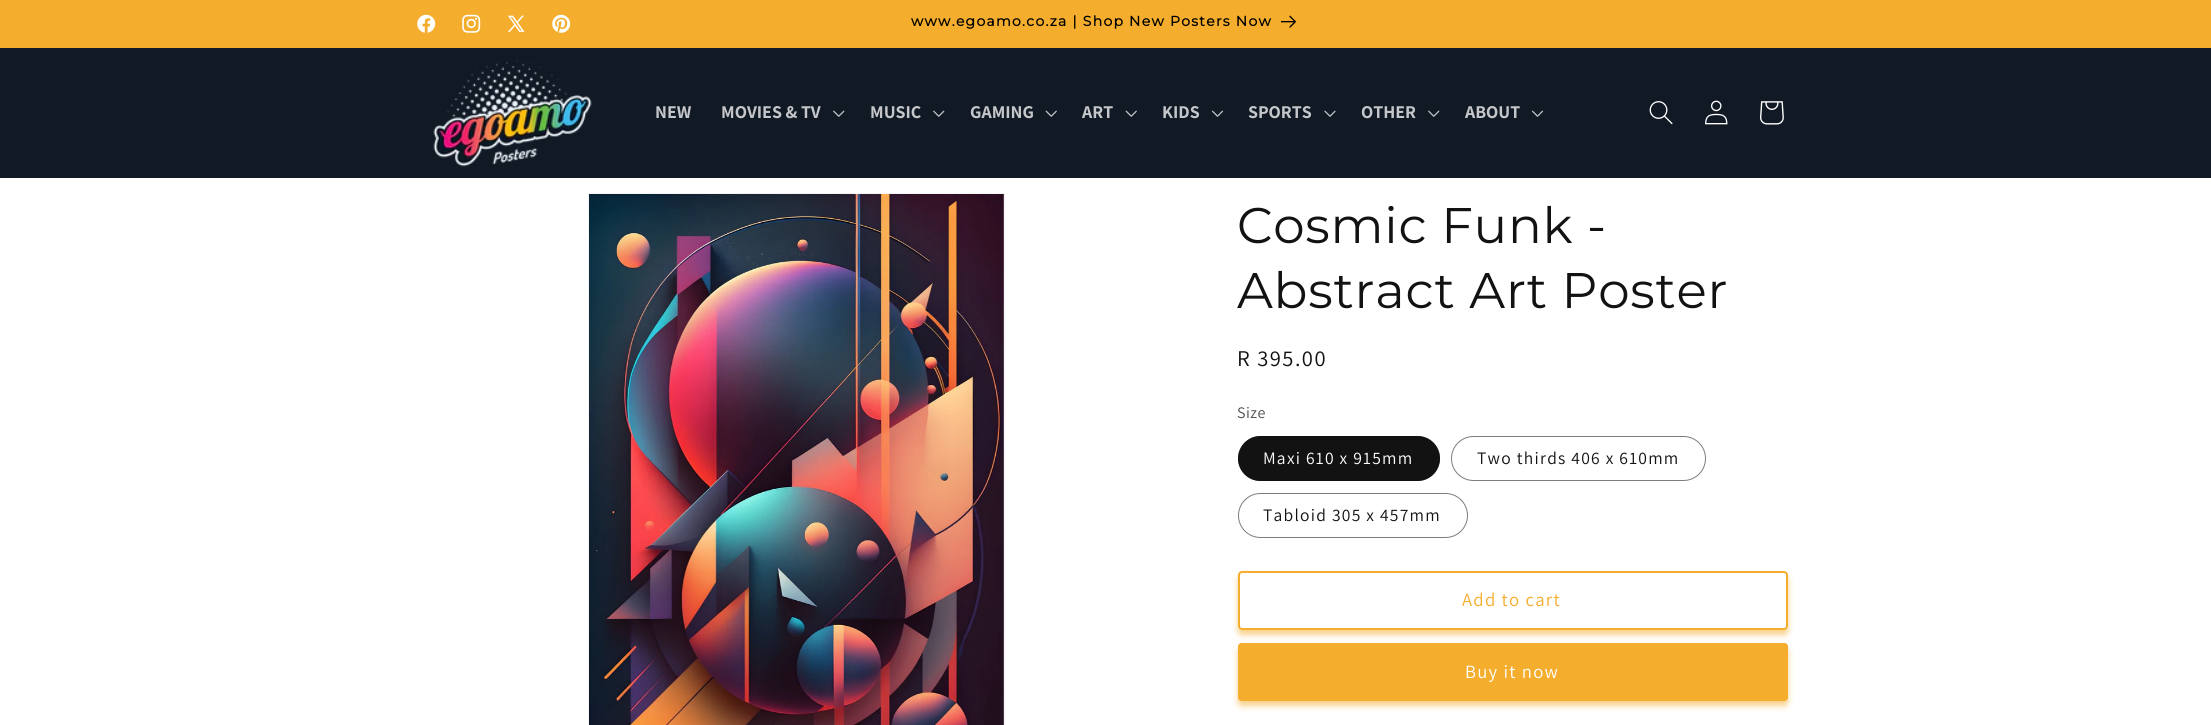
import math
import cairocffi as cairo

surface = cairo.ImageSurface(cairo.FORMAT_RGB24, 2211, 725)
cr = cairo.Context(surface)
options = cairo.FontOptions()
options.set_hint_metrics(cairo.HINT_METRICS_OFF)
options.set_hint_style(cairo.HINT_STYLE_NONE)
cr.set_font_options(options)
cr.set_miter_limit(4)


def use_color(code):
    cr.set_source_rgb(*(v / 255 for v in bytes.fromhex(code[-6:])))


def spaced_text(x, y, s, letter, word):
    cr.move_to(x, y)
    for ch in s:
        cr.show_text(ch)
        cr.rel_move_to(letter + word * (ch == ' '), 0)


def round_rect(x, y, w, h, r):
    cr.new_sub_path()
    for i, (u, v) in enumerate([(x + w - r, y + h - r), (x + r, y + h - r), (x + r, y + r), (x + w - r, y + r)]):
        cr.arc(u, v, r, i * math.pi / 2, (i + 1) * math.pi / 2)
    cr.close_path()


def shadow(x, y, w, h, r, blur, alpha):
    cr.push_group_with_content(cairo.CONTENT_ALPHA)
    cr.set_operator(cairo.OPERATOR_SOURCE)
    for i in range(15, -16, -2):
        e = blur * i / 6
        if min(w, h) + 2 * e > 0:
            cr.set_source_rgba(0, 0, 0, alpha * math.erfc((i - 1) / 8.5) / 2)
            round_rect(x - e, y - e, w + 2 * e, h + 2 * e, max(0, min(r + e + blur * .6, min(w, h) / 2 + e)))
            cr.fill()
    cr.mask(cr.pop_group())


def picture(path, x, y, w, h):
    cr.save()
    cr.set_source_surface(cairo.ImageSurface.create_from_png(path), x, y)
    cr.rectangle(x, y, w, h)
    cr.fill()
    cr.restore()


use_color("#ffffff")
cr.paint()
use_color("#f4ad2d")
cr.rectangle(0, 0, 2211, 48)
cr.fill()
picture("img1.png", 417, 14, 19, 19)
picture("img2.png", 462, 14, 19, 19)
picture("img3.png", 507, 15, 18, 17)
picture("img4.png", 552, 14, 19, 19)
cr.select_font_face("Montserrat", cairo.FONT_SLANT_NORMAL, cairo.FONT_WEIGHT_BOLD)
cr.set_font_size(14)
use_color("#000000")
spaced_text(911, 26, "www.egoamo.co.za | Shop New Posters Now", 1.25, 0)
picture("img5.png", 1281, 15, 15, 13)
use_color("#111925")
cr.rectangle(0, 48, 2211, 130)
cr.fill()
picture("img6.png", 433, 60, 159, 107)
cr.select_font_face("Assistant", cairo.FONT_SLANT_NORMAL, cairo.FONT_WEIGHT_BOLD)
cr.set_font_size(18)
use_color("#c4c6c9")
cr.move_to(655, 118)
cr.show_text("NEW")
cr.move_to(721, 118)
cr.show_text("MOVIES & TV")
picture("img7.png", 833, 110, 12, 7)
cr.move_to(870, 118)
cr.show_text("MUSIC")
picture("img7.png", 933, 110, 12, 7)
cr.move_to(970, 118)
cr.show_text("GAMING")
picture("img8.png", 1045, 110, 12, 7)
cr.move_to(1082, 118)
cr.show_text("ART")
picture("img8.png", 1125, 110, 12, 7)
cr.move_to(1162, 118)
cr.show_text("KIDS")
picture("img9.png", 1211, 110, 13, 7)
cr.move_to(1248, 118)
cr.show_text("SPORTS")
picture("img10.png", 1324, 110, 12, 7)
cr.move_to(1361, 118)
cr.show_text("OTHER")
picture("img7.png", 1428, 110, 12, 7)
cr.move_to(1465, 118)
cr.show_text("ABOUT")
picture("img9.png", 1531, 110, 13, 7)
picture("img11.png", 1649, 101, 24, 24)
picture("img12.png", 1705, 100, 23, 25)
picture("img13.png", 1760, 101, 24, 24)
cr.rectangle(588.5, 193.5, 416, 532)
use_color("#f3f3f3")
cr.set_line_width(1)
cr.stroke()
picture("img14.png", 589, 194, 415, 531)
cr.select_font_face("Montserrat")
cr.set_font_size(50)
use_color("#121212")
spaced_text(1237, 243, "Cosmic Funk -", 0.75, 0)
spaced_text(1237, 308, "Abstract Art Poster", 0.75, 0)
cr.select_font_face("Assistant")
cr.set_font_size(22.5)
spaced_text(1237, 366, "R 395.00", 1.5, 0)
cr.set_font_size(16)
use_color("#4d4d4d")
spaced_text(1237, 418, "Size", 0.5, 0)
use_color("#121212")
round_rect(1238, 436, 202, 45, 22.5)
cr.fill()
round_rect(1238.5, 436.5, 201, 44, 22)
cr.set_source_rgba(0.071, 0.071, 0.071, 0.55)
cr.stroke()
cr.set_font_size(17.5)
use_color("#ffffff")
spaced_text(1263, 464, "Maxi 610 x 915mm", 1.25, 0)
round_rect(1451.5, 436.5, 254, 44, 22)
use_color("#7d7d7d")
cr.stroke()
use_color("#121212")
spaced_text(1477, 464, "Two thirds 406 x 610mm", 1.25, 0)
round_rect(1238.5, 493.5, 229, 44, 22)
use_color("#7d7d7d")
cr.stroke()
use_color("#121212")
spaced_text(1263, 521, "Tabloid 305 x 457mm", 1.25, 0)
use_color("#f4ad2d")
shadow(1238, 576, 550, 59, 4, 3, 0.55)
use_color("#ffffff")
round_rect(1238, 571, 550, 59, 4)
cr.fill()
round_rect(1238.5, 571.5, 549, 58, 3.5)
cr.stroke()
round_rect(1239, 572, 548, 57, 3)
use_color("#f4ad2d")
cr.set_line_width(2)
cr.stroke()
cr.set_font_size(18.75)
spaced_text(1462, 606, "Add to cart", 1.25, 0)
use_color("#f4ad2d")
shadow(1238, 648, 550, 58, 4, 3, 0.55)
use_color("#f4ad2d")
round_rect(1238, 643, 550, 58, 4)
cr.fill()
round_rect(1238.5, 643.5, 549, 57, 3.5)
cr.set_line_width(1)
cr.stroke()
use_color("#ffffff")
spaced_text(1465, 678, "Buy it now", 1.25, 0)
surface.write_to_png("result.png")
